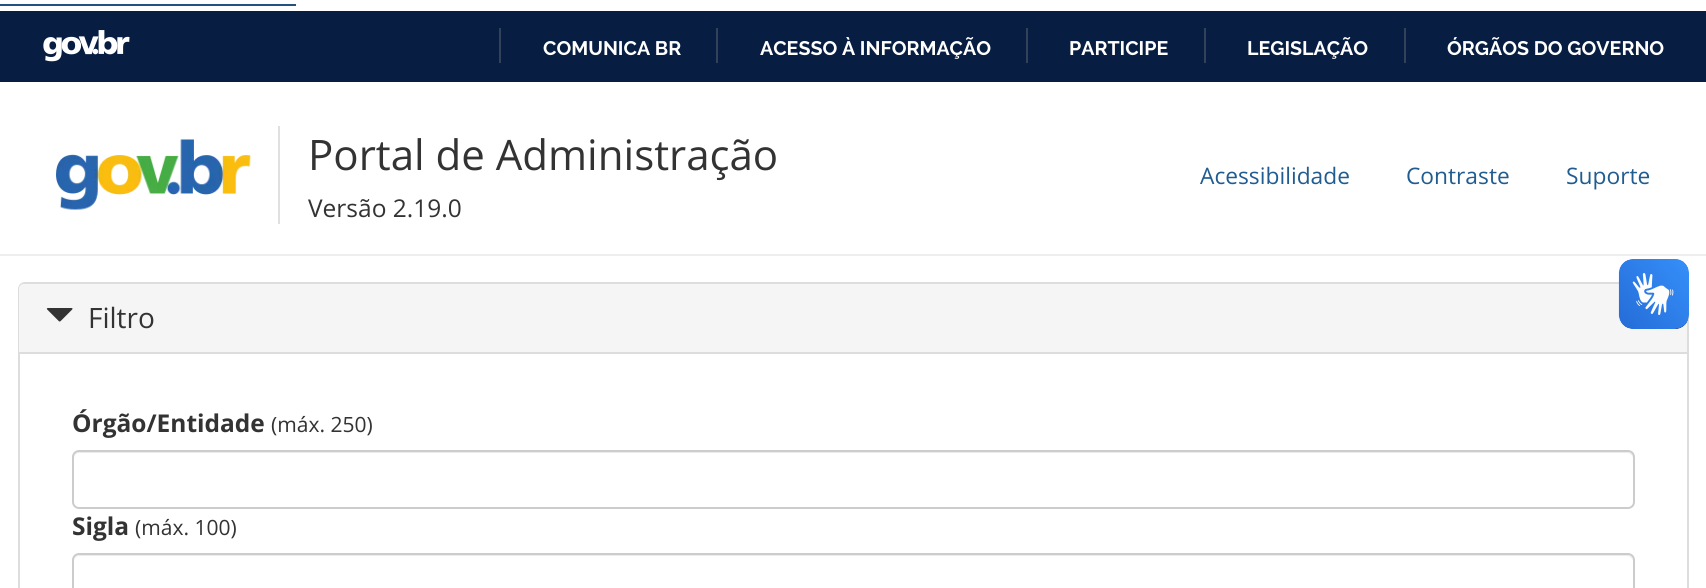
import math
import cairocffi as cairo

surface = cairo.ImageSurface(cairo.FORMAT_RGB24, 1706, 588)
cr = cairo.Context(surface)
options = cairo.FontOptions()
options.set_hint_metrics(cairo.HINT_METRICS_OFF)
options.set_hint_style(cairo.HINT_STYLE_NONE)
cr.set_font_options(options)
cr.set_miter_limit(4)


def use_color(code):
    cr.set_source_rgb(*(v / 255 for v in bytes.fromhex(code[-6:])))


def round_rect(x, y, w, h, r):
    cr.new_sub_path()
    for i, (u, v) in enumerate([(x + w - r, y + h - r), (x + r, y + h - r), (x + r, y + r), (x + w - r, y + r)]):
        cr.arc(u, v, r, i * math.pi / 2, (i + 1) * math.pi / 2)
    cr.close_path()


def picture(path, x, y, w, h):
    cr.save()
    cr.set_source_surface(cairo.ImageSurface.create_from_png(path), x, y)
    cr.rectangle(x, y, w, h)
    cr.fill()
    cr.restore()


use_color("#ffffff")
cr.paint()
use_color("#23527c")
cr.rectangle(0, 4, 296, 2)
cr.fill()
use_color("#071d41")
cr.rectangle(0, 11, 1706, 71)
cr.fill()
picture("img1.png", 43, 30, 87, 32)
use_color("#32425b")
cr.rectangle(499, 28, 2, 35)
cr.fill()
cr.select_font_face("Raleway", cairo.FONT_SLANT_NORMAL, cairo.FONT_WEIGHT_BOLD)
cr.set_font_size(19.6)
use_color("#ffffff")
cr.move_to(543, 55)
cr.show_text("COMUNICA BR")
use_color("#32425b")
cr.rectangle(716, 28, 2, 35)
cr.fill()
use_color("#ffffff")
cr.move_to(760, 55)
cr.show_text("ACESSO À INFORMAÇÃO")
use_color("#32425b")
cr.rectangle(1026, 28, 2, 35)
cr.fill()
use_color("#ffffff")
cr.move_to(1069, 55)
cr.show_text("PARTICIPE")
use_color("#32425b")
cr.rectangle(1204, 28, 2, 35)
cr.fill()
use_color("#ffffff")
cr.move_to(1247, 55)
cr.show_text("LEGISLAÇÃO")
use_color("#32425b")
cr.rectangle(1404, 28, 2, 35)
cr.fill()
use_color("#ffffff")
cr.move_to(1447, 55)
cr.show_text("ÓRGÃOS DO GOVERNO")
use_color("#eeeeee")
cr.rectangle(0, 254, 1706, 2)
cr.fill()
picture("img2.png", 56, 139, 195, 71)
use_color("#e0e0e0")
cr.rectangle(278, 126, 2, 98)
cr.fill()
cr.select_font_face("Open Sans")
cr.set_font_size(42)
use_color("#333333")
cr.move_to(308, 170)
cr.show_text("Portal de Administração")
cr.set_font_size(24.5)
cr.move_to(308, 217)
cr.show_text("Versão 2.19.0")
cr.set_font_size(22.75)
use_color("#205c90")
cr.move_to(1200, 184)
cr.show_text("Acessibilidade")
cr.move_to(1406, 184)
cr.show_text("Contraste")
cr.move_to(1566, 184)
cr.show_text("Suporte")
round_rect(19, 283, 1669, 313, 6)
use_color("#dddddd")
cr.stroke()
use_color("#f5f5f5")
cr.new_path()
cr.move_to(24, 284)
cr.line_to(1682, 284)
cr.curve_to(1685, 284, 1687, 286, 1687, 289)
cr.line_to(1687, 354)
cr.line_to(19, 354)
cr.line_to(19, 289)
cr.curve_to(19, 286, 21, 284, 24, 284)
cr.close_path()
cr.fill()
picture("img3.png", 1618, 259, 71, 70)
picture("img4.png", 1619, 259, 70, 70)
use_color("#dddddd")
cr.rectangle(19, 352, 1668, 2)
cr.fill()
picture("img5.png", 46, 308, 27, 14)
cr.set_font_size(28)
use_color("#333333")
cr.move_to(88, 328)
cr.show_text("Filtro")
cr.select_font_face("Open Sans", cairo.FONT_SLANT_NORMAL, cairo.FONT_WEIGHT_BOLD)
cr.set_font_size(24.5)
cr.move_to(72, 432)
cr.show_text("Órgão/Entidade")
cr.select_font_face("Open Sans")
cr.set_font_size(21)
cr.move_to(271, 432)
cr.show_text("(máx. 250)")
use_color("#ececec")
cr.new_path()
cr.move_to(79, 453)
cr.line_to(1628, 453)
cr.curve_to(1630, 453, 1633, 456, 1633, 458)
cr.line_to(1633, 457)
cr.curve_to(1633, 454, 1631, 452, 1628, 452)
cr.line_to(79, 452)
cr.curve_to(76, 452, 74, 454, 74, 457)
cr.line_to(74, 458)
cr.curve_to(74, 456, 76, 453, 79, 453)
cr.close_path()
cr.fill()
round_rect(73, 451, 1561, 57, 6)
use_color("#cccccc")
cr.stroke()
cr.select_font_face("Open Sans", cairo.FONT_SLANT_NORMAL, cairo.FONT_WEIGHT_BOLD)
cr.set_font_size(24.5)
use_color("#333333")
cr.move_to(72, 535)
cr.show_text("Sigla")
cr.select_font_face("Open Sans")
cr.set_font_size(21)
cr.move_to(135, 535)
cr.show_text("(máx. 100)")
use_color("#ececec")
cr.new_path()
cr.move_to(79, 556)
cr.line_to(1628, 556)
cr.curve_to(1630, 556, 1633, 559, 1633, 562)
cr.curve_to(1633, 559, 1632, 555, 1628, 555)
cr.line_to(79, 555)
cr.curve_to(75, 555, 74, 559, 74, 562)
cr.curve_to(74, 559, 76, 556, 79, 556)
cr.close_path()
cr.fill()
round_rect(73, 554, 1561, 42, 6)
use_color("#cccccc")
cr.stroke()
surface.write_to_png("result.png")
